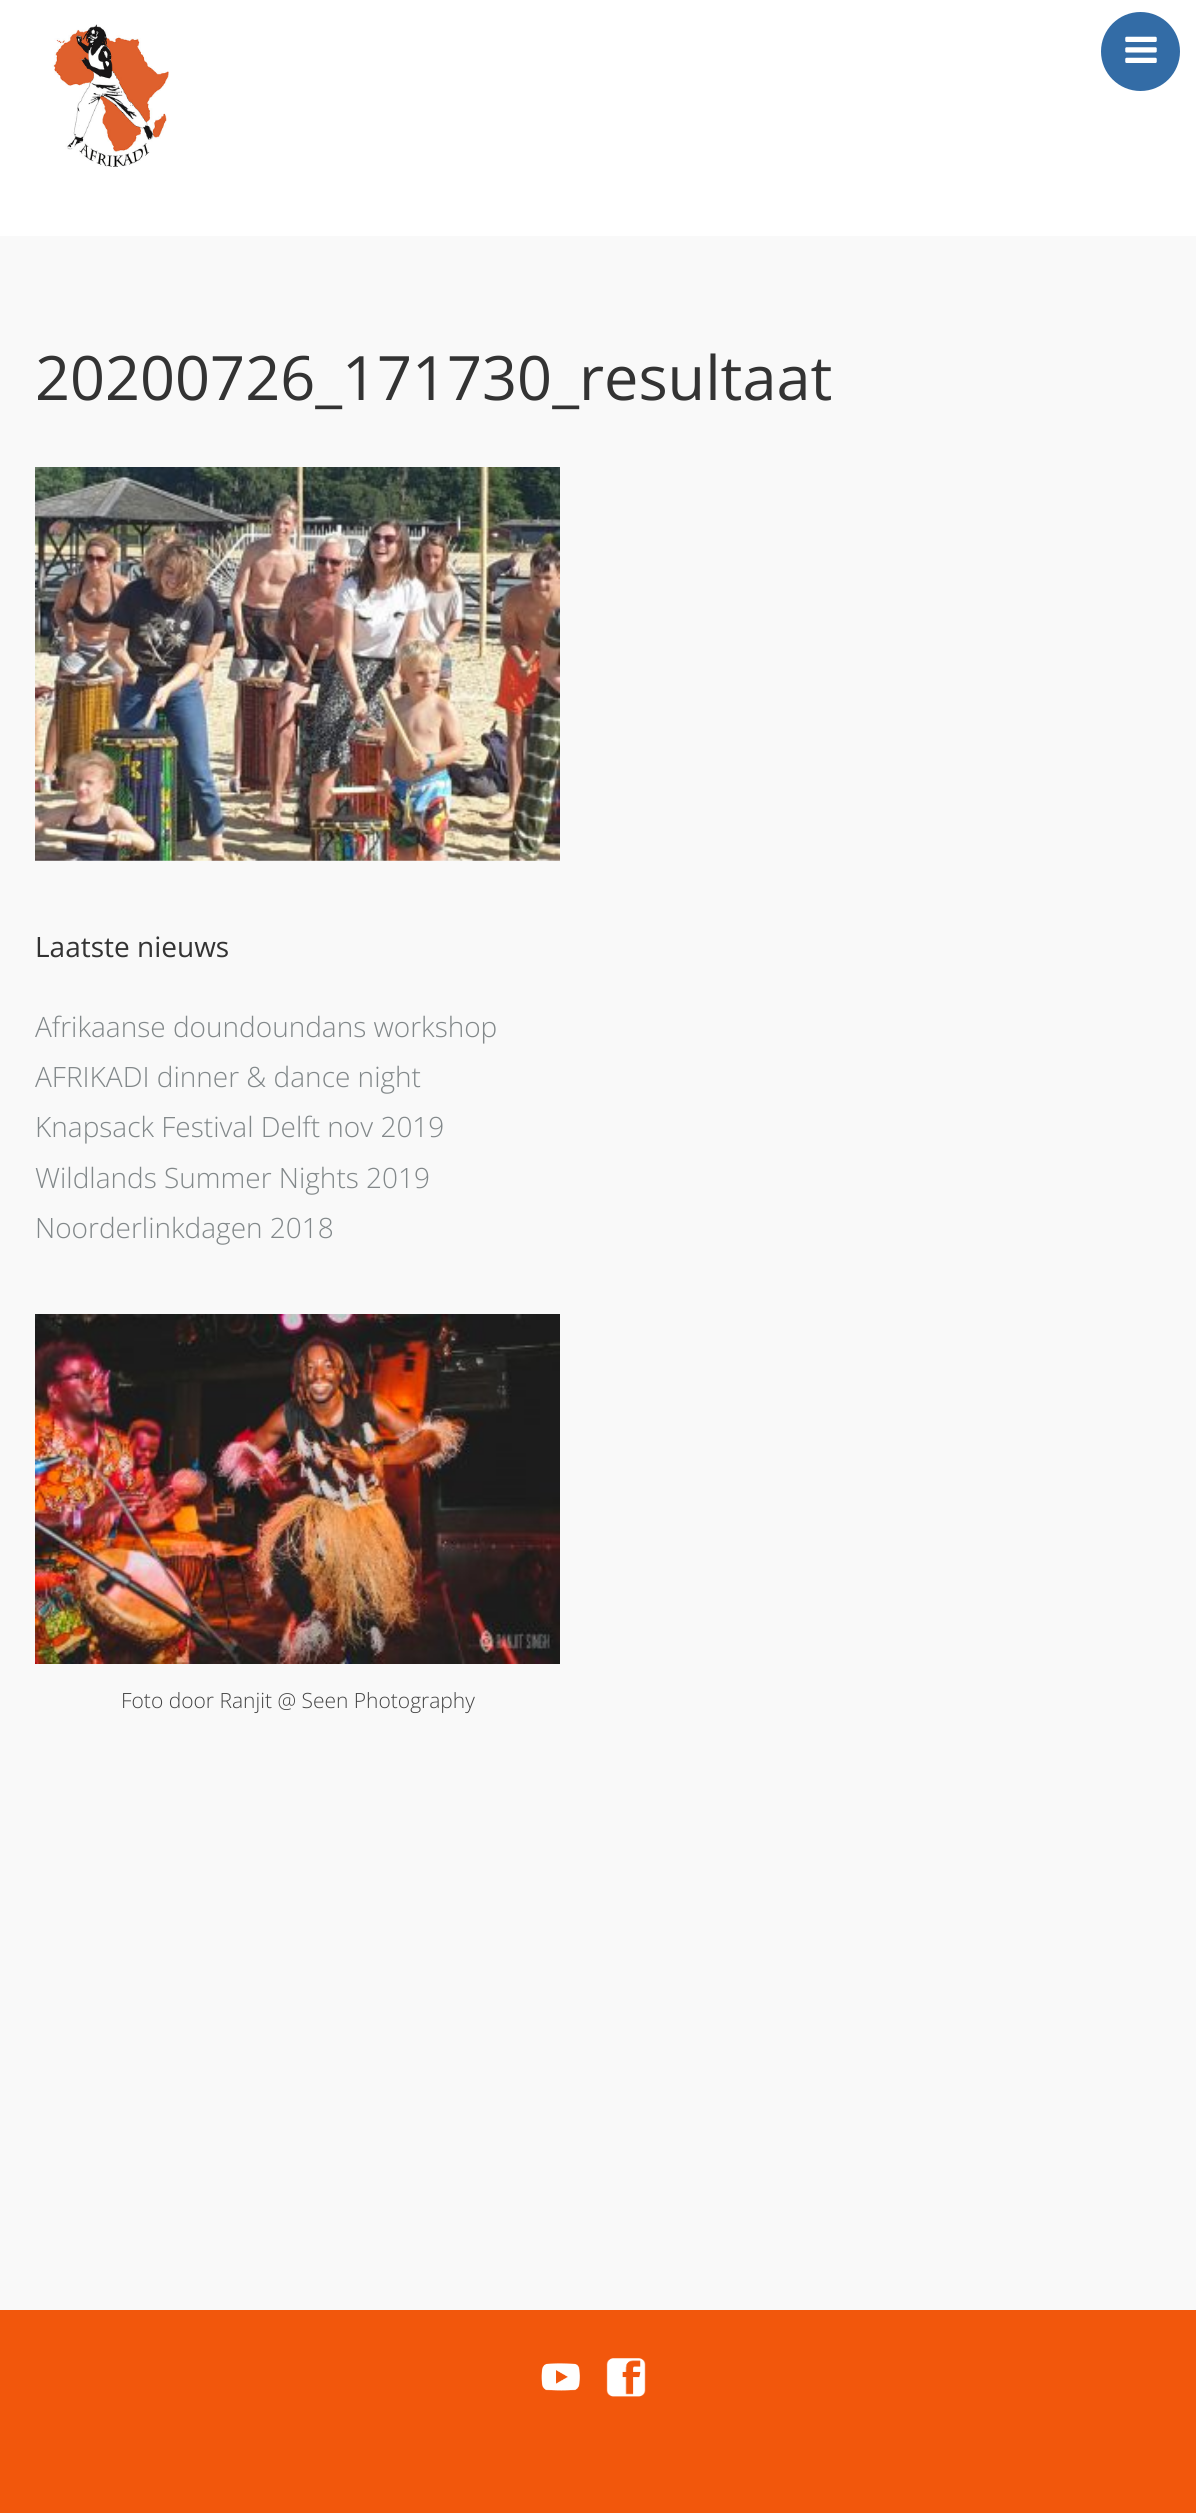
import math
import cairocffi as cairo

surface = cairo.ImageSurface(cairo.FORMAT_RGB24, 1196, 2513)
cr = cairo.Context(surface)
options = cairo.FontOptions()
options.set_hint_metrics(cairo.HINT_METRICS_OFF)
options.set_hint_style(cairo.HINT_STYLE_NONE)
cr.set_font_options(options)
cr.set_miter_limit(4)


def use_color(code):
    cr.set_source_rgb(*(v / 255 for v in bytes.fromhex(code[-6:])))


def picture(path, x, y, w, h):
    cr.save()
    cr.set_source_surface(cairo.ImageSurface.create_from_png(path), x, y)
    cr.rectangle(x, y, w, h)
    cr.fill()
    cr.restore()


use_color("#f9f9f9")
cr.paint()
use_color("#ffffff")
cr.rectangle(0, 0, 1196, 236)
cr.fill()
picture("img1.png", 52, 24, 117, 143)
use_color("#336ca6")
cr.arc(1140.5, 51.5, 39.5, 0, 2 * math.pi)
cr.fill()
picture("img2.png", 1125, 36, 32, 27)
cr.select_font_face("Open Sans")
cr.set_font_size(61.25)
use_color("#333333")
cr.move_to(35, 400)
cr.show_text("20200726_171730_resultaat")
picture("img3.png", 35, 467, 525, 394)
cr.set_font_size(28)
cr.move_to(35, 957)
cr.show_text("Laatste nieuws")
cr.select_font_face("Open Sans Light")
use_color("#82888a")
cr.move_to(35, 1037)
cr.show_text("Afrikaanse doundoundans workshop")
cr.move_to(35, 1087)
cr.show_text("AFRIKADI dinner & dance night")
cr.move_to(35, 1137)
cr.show_text("Knapsack Festival Delft nov 2019")
cr.move_to(35, 1188)
cr.show_text("Wildlands Summer Nights 2019")
cr.move_to(35, 1238)
cr.show_text("Noorderlinkdagen 2018")
picture("img4.png", 35, 1314, 525, 350)
cr.set_font_size(21)
use_color("#444444")
cr.move_to(121, 1708)
cr.show_text("Foto door Ranjit @ Seen Photography")
use_color("#f2570c")
cr.rectangle(0, 2310, 1196, 203)
cr.fill()
picture("img5.png", 541, 2363, 39, 28)
picture("img6.png", 606, 2358, 40, 39)
surface.write_to_png("result.png")
